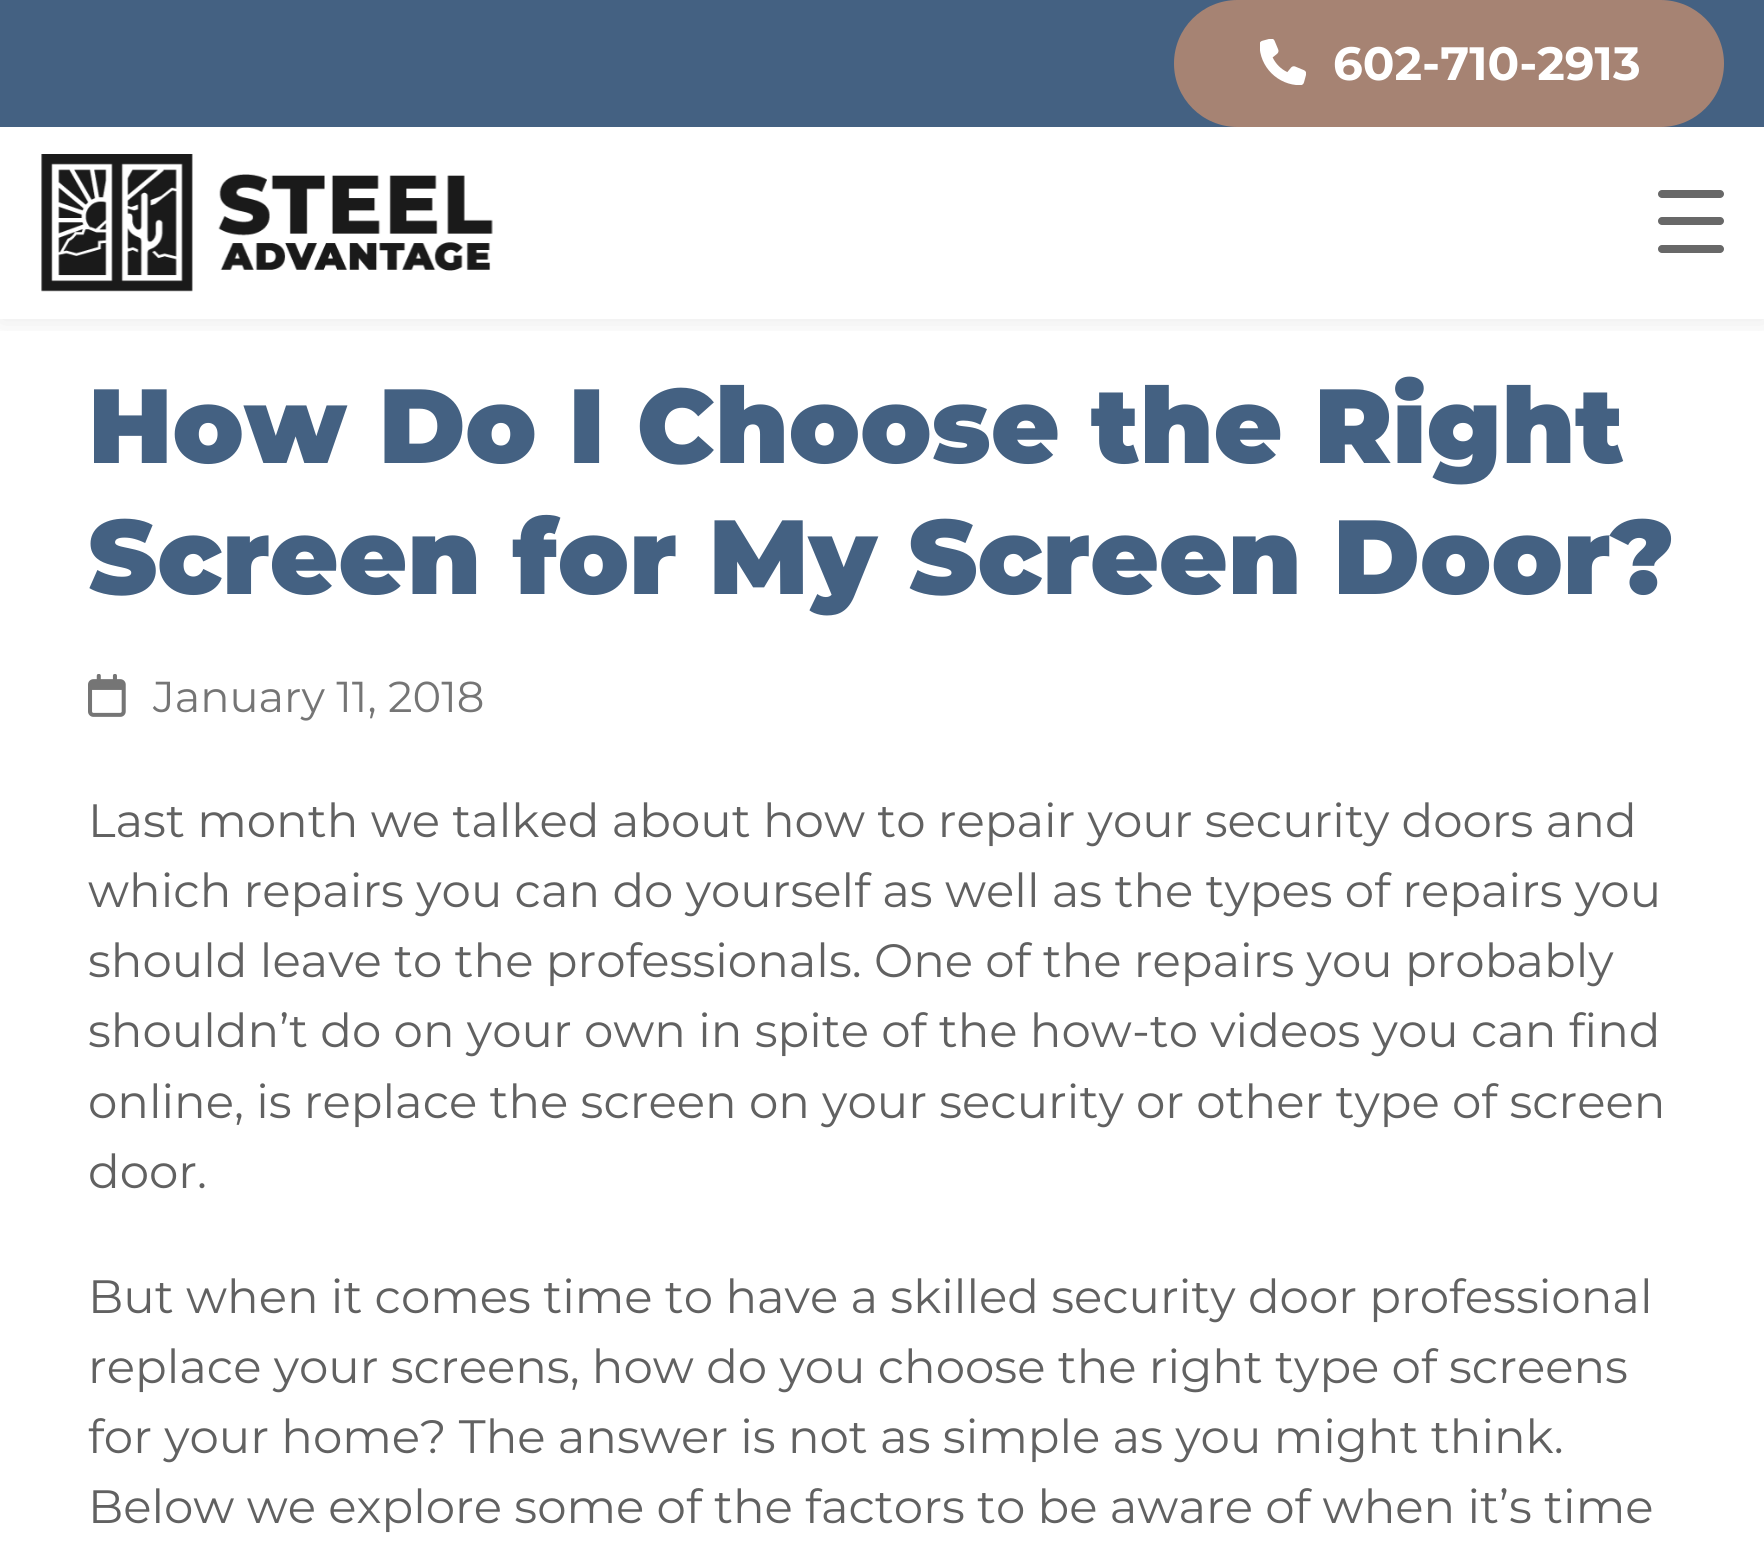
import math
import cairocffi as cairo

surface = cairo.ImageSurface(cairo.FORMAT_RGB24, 1764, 1547)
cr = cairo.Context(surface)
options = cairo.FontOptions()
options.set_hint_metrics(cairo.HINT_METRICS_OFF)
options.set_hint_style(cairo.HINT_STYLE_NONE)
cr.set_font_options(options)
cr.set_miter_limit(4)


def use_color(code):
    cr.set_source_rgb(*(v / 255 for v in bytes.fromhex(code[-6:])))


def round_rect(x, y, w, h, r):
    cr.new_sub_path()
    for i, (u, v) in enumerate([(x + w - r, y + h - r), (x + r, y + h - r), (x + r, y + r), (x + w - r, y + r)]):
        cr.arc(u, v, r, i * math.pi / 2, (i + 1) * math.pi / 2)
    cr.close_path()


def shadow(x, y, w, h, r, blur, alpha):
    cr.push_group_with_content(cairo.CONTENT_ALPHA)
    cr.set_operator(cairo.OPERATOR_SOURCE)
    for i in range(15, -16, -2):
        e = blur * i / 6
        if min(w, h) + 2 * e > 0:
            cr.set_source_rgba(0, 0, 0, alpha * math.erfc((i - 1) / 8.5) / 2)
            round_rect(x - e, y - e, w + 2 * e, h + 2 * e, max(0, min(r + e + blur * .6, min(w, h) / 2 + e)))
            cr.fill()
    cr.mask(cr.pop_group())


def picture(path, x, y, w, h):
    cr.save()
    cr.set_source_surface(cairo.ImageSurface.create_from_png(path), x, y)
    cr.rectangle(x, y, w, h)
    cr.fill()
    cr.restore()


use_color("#ffffff")
cr.paint()
cr.save()
cr.rectangle(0, 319, 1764, 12)
cr.clip()
use_color("#000000")
shadow(0, 127, 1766, 192, 0, 14, 0.1)
cr.restore()
use_color("#446182")
cr.rectangle(0, 0, 1764, 127)
cr.fill()
use_color("#a68373")
round_rect(1174, 0, 550, 127, 63.5)
cr.fill()
picture("img1.png", 1260, 39, 46, 46)
cr.select_font_face("Montserrat", cairo.FONT_SLANT_NORMAL, cairo.FONT_WEIGHT_BOLD)
cr.set_font_size(46.75)
use_color("#ffffff")
cr.move_to(1333, 80)
cr.show_text("602-710-2913")
picture("img2.png", 41, 154, 452, 138)
use_color("#686868")
round_rect(1658, 217, 66, 8, 4)
cr.fill()
round_rect(1658, 190, 66, 8, 4)
cr.fill()
round_rect(1658, 245, 66, 8, 4)
cr.fill()
cr.select_font_face("Montserrat Black")
cr.set_font_size(105.25)
use_color("#446182")
cr.move_to(88, 463)
cr.show_text("How Do I Choose the Right")
cr.move_to(88, 594)
cr.show_text("Screen for My Screen Door?")
picture("img3.png", 88, 674, 38, 43)
cr.select_font_face("Montserrat")
cr.set_font_size(43.25)
use_color("#757575")
cr.move_to(153, 712)
cr.show_text("January 11, 2018")
cr.set_font_size(46.75)
use_color("#616161")
cr.move_to(88, 837)
cr.show_text("Last month we talked about how to repair your security doors and")
cr.move_to(88, 907)
cr.show_text("which repairs you can do yourself as well as the types of repairs you")
cr.move_to(88, 977)
cr.show_text("should leave to the professionals. One of the repairs you probably")
cr.move_to(88, 1047)
cr.show_text("shouldn’t do on your own in spite of the how-to videos you can find")
cr.move_to(88, 1118)
cr.show_text("online, is replace the screen on your security or other type of screen")
cr.move_to(88, 1188)
cr.show_text("door.")
cr.move_to(88, 1313)
cr.show_text("But when it comes time to have a skilled security door professional")
cr.move_to(88, 1383)
cr.show_text("replace your screens, how do you choose the right type of screens")
cr.move_to(88, 1453)
cr.show_text("for your home? The answer is not as simple as you might think.")
cr.move_to(88, 1523)
cr.show_text("Below we explore some of the factors to be aware of when it’s time")
surface.write_to_png("result.png")
